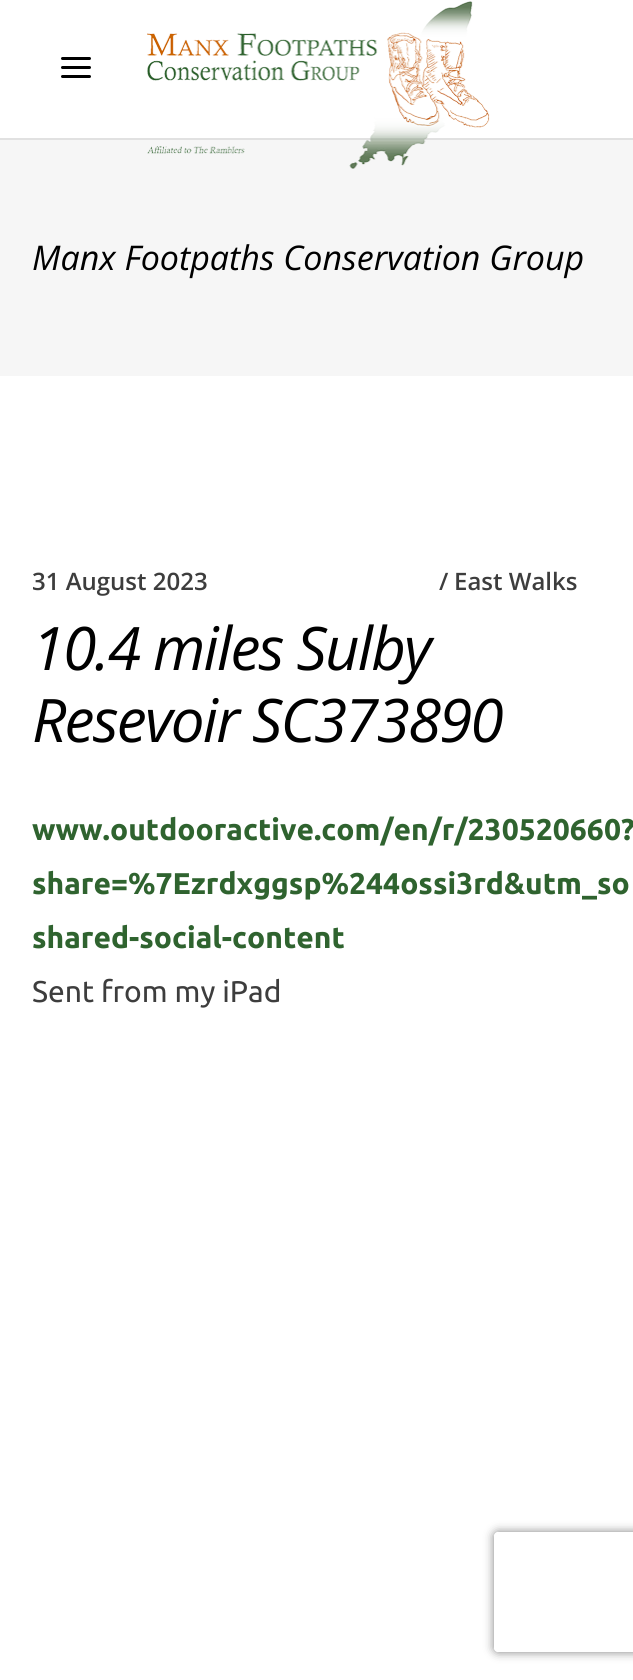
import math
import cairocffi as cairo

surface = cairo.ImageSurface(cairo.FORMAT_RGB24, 633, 1680)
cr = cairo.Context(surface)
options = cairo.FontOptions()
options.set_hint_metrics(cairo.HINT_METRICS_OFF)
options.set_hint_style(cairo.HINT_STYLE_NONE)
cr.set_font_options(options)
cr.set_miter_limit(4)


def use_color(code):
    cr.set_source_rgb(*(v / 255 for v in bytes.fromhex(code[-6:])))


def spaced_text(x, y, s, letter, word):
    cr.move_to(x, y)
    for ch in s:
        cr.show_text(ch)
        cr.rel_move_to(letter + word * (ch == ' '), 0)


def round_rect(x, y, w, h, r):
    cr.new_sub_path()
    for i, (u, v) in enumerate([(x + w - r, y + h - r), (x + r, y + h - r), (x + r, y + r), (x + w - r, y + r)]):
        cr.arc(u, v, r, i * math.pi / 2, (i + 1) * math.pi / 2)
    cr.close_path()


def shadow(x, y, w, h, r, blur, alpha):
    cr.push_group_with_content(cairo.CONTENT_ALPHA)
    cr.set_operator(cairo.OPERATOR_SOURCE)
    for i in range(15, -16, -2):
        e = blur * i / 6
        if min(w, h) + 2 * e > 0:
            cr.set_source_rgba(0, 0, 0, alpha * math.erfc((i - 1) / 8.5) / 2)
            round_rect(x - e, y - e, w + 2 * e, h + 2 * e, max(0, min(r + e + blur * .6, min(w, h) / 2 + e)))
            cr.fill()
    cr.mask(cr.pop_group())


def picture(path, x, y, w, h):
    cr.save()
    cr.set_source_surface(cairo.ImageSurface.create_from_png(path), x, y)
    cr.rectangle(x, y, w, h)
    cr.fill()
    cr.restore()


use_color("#ffffff")
cr.paint()
use_color("#e1e1e1")
cr.rectangle(0, 138, 633, 2)
cr.fill()
picture("img1.png", 61, 57, 30, 21)
use_color("#f6f6f6")
cr.rectangle(0, 140, 633, 236)
cr.fill()
picture("img2.png", 147, 1, 343, 168)
cr.select_font_face("Open Sans", cairo.FONT_SLANT_ITALIC)
cr.set_font_size(34)
use_color("#000000")
cr.move_to(32, 270)
cr.show_text("Manx Footpaths Conservation Group")
cr.select_font_face("Open Sans SemiBold")
cr.set_font_size(24)
use_color("#3d3d3d")
cr.move_to(32, 590)
cr.show_text("31 August 2023")
cr.move_to(439, 590)
cr.show_text("/")
cr.move_to(454, 590)
cr.show_text("East Walks")
cr.select_font_face("Open Sans", cairo.FONT_SLANT_ITALIC)
cr.set_font_size(60)
use_color("#000000")
spaced_text(32, 670, "10.4 miles Sulby", -1.75, 0)
spaced_text(32, 742, "Resevoir SC373890", -1.75, 0)
cr.select_font_face("Ubuntu", cairo.FONT_SLANT_NORMAL, cairo.FONT_WEIGHT_BOLD)
cr.set_font_size(30)
use_color("#2f632f")
cr.move_to(32, 840)
cr.show_text("www.outdooractive.com/en/r/230520660?")
cr.move_to(32, 894)
cr.show_text("share=%7Ezrdxggsp%244ossi3rd&utm_so")
cr.move_to(32, 948)
cr.show_text("shared-social-content")
cr.select_font_face("Ubuntu")
use_color("#3d3d3d")
cr.move_to(32, 1002)
cr.show_text("Sent from my iPad")
cr.save()
cr.set_fill_rule(cairo.FILL_RULE_EVEN_ODD)
cr.new_path()
cr.move_to(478, 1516)
cr.line_to(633, 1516)
cr.line_to(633, 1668)
cr.line_to(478, 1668)
cr.close_path()
cr.move_to(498, 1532)
cr.line_to(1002, 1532)
cr.curve_to(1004, 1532, 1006, 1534, 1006, 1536)
cr.line_to(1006, 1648)
cr.curve_to(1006, 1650, 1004, 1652, 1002, 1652)
cr.line_to(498, 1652)
cr.curve_to(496, 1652, 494, 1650, 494, 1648)
cr.line_to(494, 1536)
cr.curve_to(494, 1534, 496, 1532, 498, 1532)
cr.close_path()
cr.clip()
use_color("#808080")
shadow(494, 1532, 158, 120, 4, 5, 1)
cr.restore()
surface.write_to_png("result.png")
